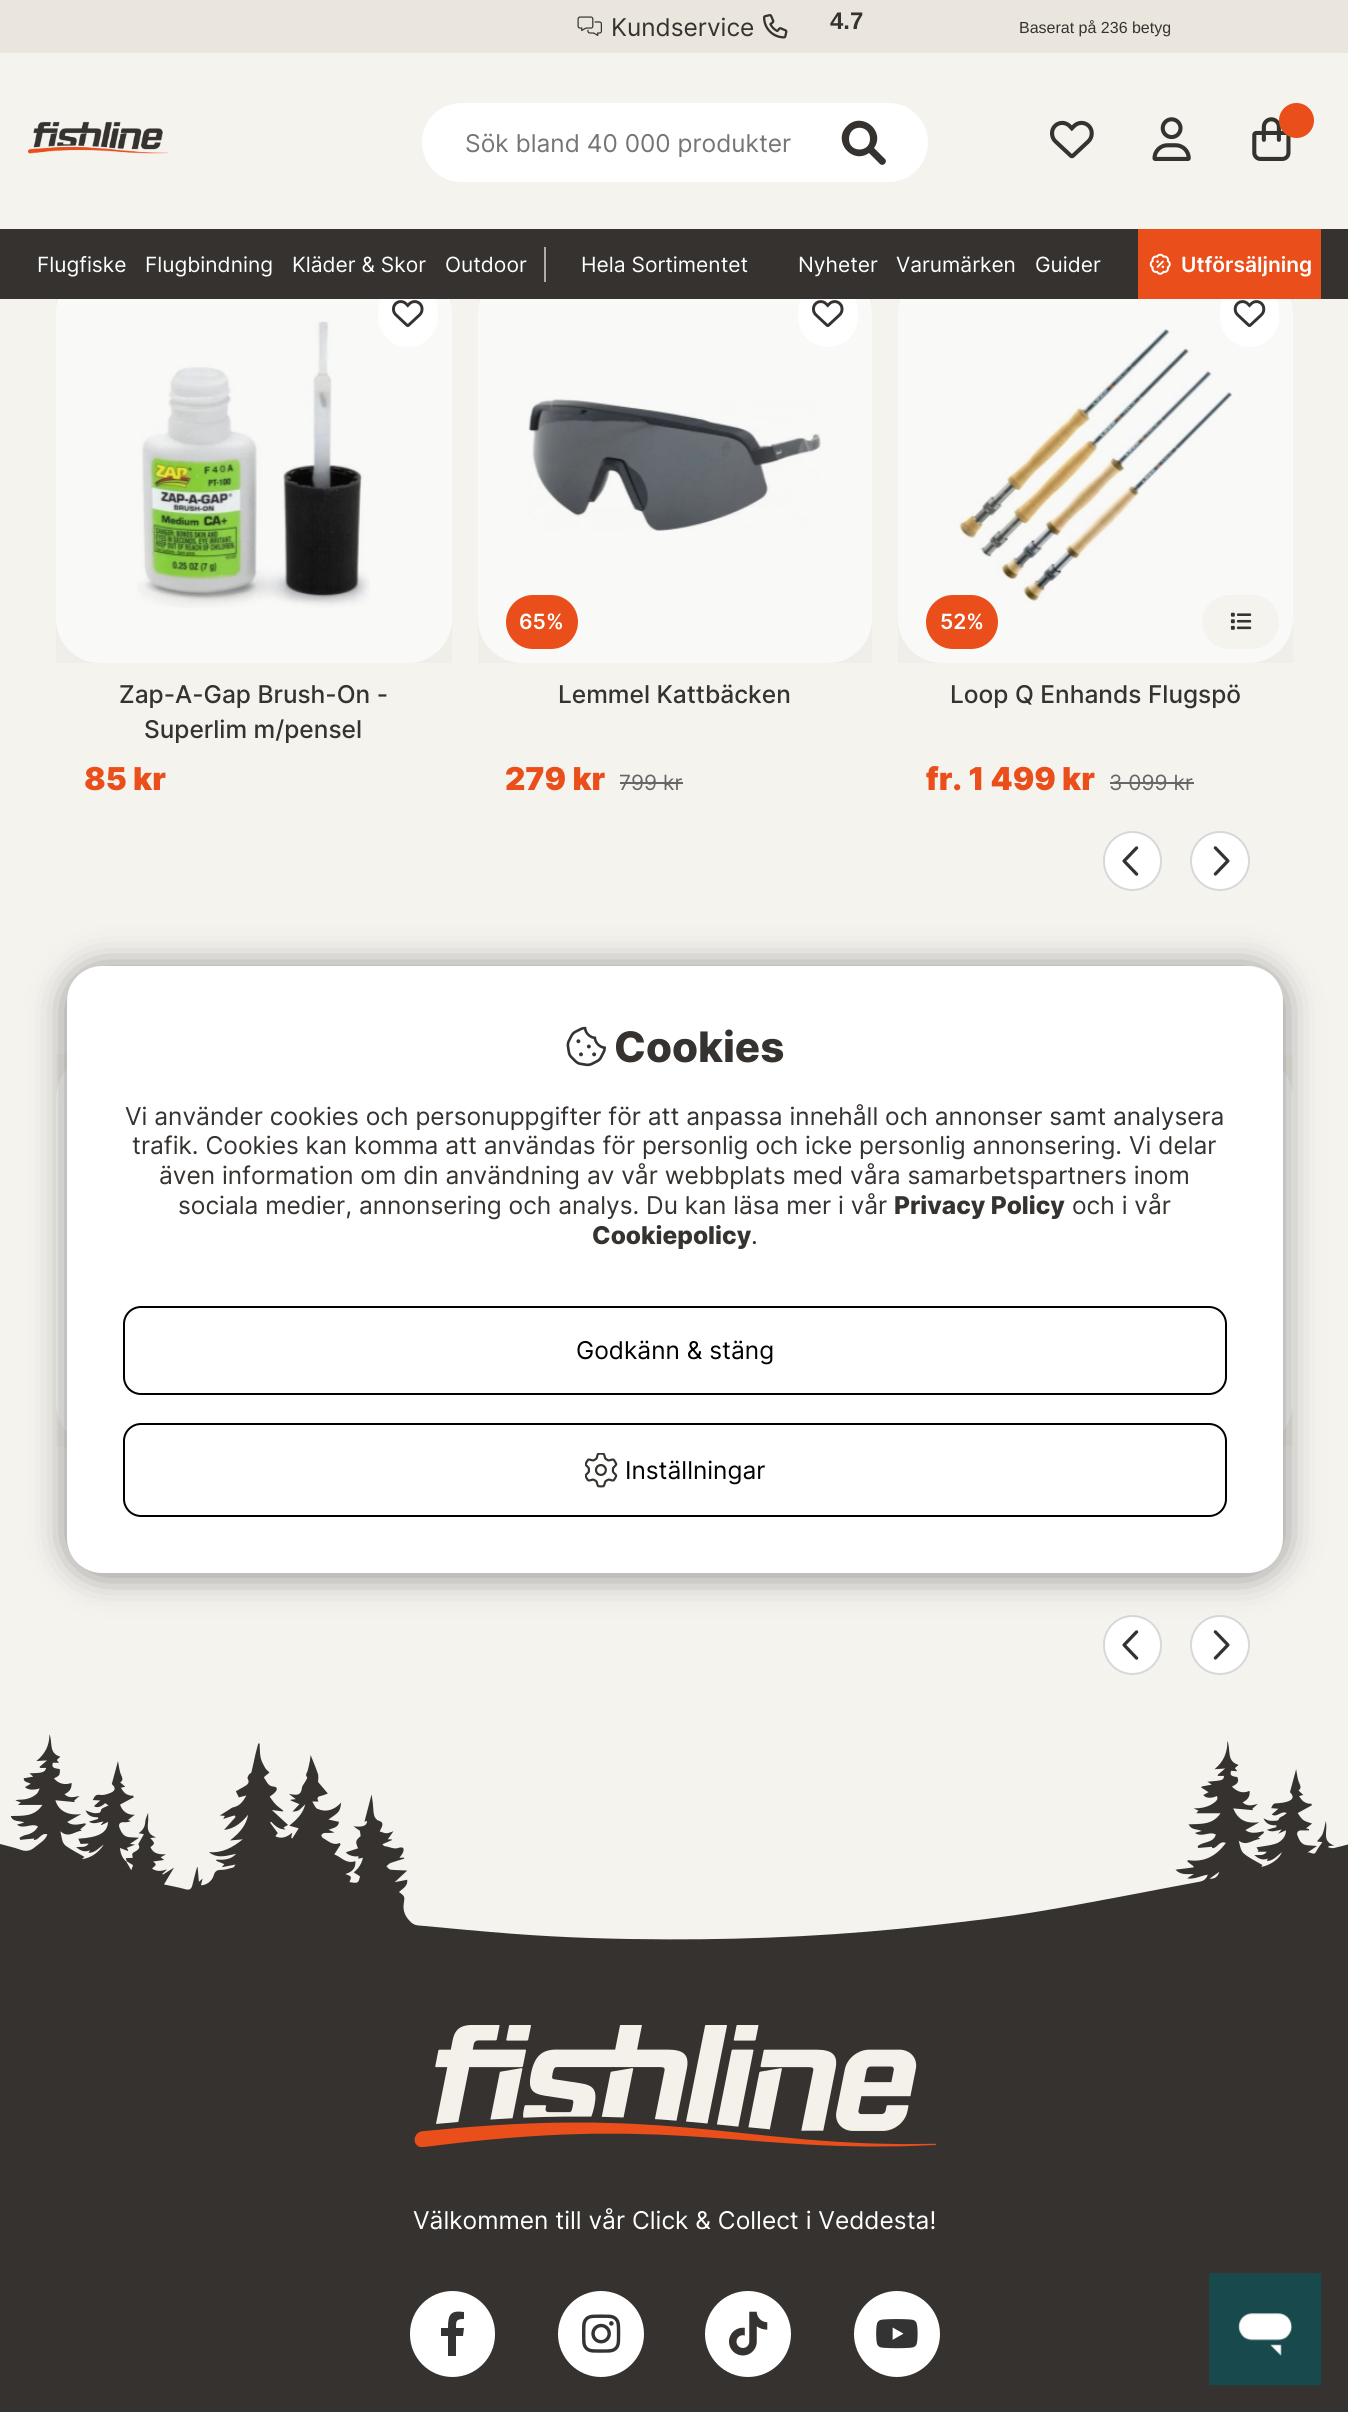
import math
import cairocffi as cairo

surface = cairo.ImageSurface(cairo.FORMAT_RGB24, 1348, 2412)
cr = cairo.Context(surface)
options = cairo.FontOptions()
options.set_hint_metrics(cairo.HINT_METRICS_OFF)
options.set_hint_style(cairo.HINT_STYLE_NONE)
cr.set_font_options(options)
cr.set_miter_limit(4)


def use_color(code):
    cr.set_source_rgb(*(v / 255 for v in bytes.fromhex(code[-6:])))


def round_rect(x, y, w, h, r):
    cr.new_sub_path()
    for i, (u, v) in enumerate([(x + w - r, y + h - r), (x + r, y + h - r), (x + r, y + r), (x + w - r, y + r)]):
        cr.arc(u, v, r, i * math.pi / 2, (i + 1) * math.pi / 2)
    cr.close_path()


def shadow(x, y, w, h, r, blur, alpha):
    cr.push_group_with_content(cairo.CONTENT_ALPHA)
    cr.set_operator(cairo.OPERATOR_SOURCE)
    for i in range(15, -16, -2):
        e = blur * i / 6
        if min(w, h) + 2 * e > 0:
            cr.set_source_rgba(0, 0, 0, alpha * math.erfc((i - 1) / 8.5) / 2)
            round_rect(x - e, y - e, w + 2 * e, h + 2 * e, max(0, min(r + e + blur * .6, min(w, h) / 2 + e)))
            cr.fill()
    cr.mask(cr.pop_group())


def picture(path, x, y, w, h):
    cr.save()
    cr.set_source_surface(cairo.ImageSurface.create_from_png(path), x, y)
    cr.rectangle(x, y, w, h)
    cr.fill()
    cr.restore()


use_color("#f5f3ee")
cr.paint()
use_color("#eae6de")
cr.rectangle(0, 0, 1348, 53)
cr.fill()
picture("img1.png", 577, 16, 25, 20)
cr.select_font_face("Inter")
cr.set_font_size(24.5)
use_color("#353230")
cr.move_to(611, 36)
cr.show_text("Kundservice")
picture("img2.png", 763, 14, 25, 25)
cr.select_font_face("Liberation Sans", cairo.FONT_SLANT_NORMAL, cairo.FONT_WEIGHT_BOLD)
cr.set_font_size(24)
cr.move_to(830, 29)
cr.show_text("4.7")
cr.select_font_face("Liberation Sans")
cr.set_font_size(16)
cr.move_to(1019, 33)
cr.show_text("Baserat på 236 betyg")
picture("img3.png", 28, 121, 140, 33)
use_color("#ffffff")
round_rect(422, 103, 506, 79, 39.5)
cr.fill()
cr.select_font_face("Inter")
cr.set_font_size(24.5)
use_color("#757575")
cr.move_to(465, 152)
cr.show_text("Sök bland 40 000 produkter")
use_color("#353230")
cr.new_path()
cr.move_to(885, 159)
cr.line_to(874, 148)
cr.curve_to(886, 131, 862, 111, 847, 126)
cr.curve_to(832, 141, 852, 165, 869, 153)
cr.line_to(880, 164)
cr.curve_to(883, 167, 888, 162, 885, 159)
cr.close_path()
cr.move_to(849, 139)
cr.curve_to(849, 124, 870, 124, 870, 139)
cr.curve_to(870, 153, 849, 153, 849, 139)
cr.close_path()
cr.fill()
picture("img4.png", 1050, 120, 44, 39)
picture("img5.png", 1152, 117, 39, 44)
picture("img6.png", 1252, 117, 39, 44)
use_color("#e94e1b")
cr.arc(1296.5, 120.5, 17.5, 0, 2 * math.pi)
cr.fill()
use_color("#ffffff")
round_rect(56, 268, 396, 395, 44)
cr.fill()
picture("img9.png", 137, 321, 233, 287)
cr.set_source_rgba(0.545, 0.518, 0.427, 0.05)
cr.rectangle(56, 299, 396, 364)
cr.fill()
use_color("#ffffff")
round_rect(378, 282, 60, 65, 30)
cr.fill()
round_rect(478, 268, 394, 395, 44)
cr.fill()
picture("img10.png", 528, 398, 293, 133)
cr.set_source_rgba(0.545, 0.518, 0.427, 0.05)
cr.rectangle(478, 299, 394, 364)
cr.fill()
use_color("#ffffff")
round_rect(798, 282, 60, 65, 30)
cr.fill()
round_rect(898, 268, 395, 395, 44)
cr.fill()
picture("img12.png", 959, 329, 274, 273)
cr.set_source_rgba(0.545, 0.518, 0.427, 0.05)
cr.rectangle(898, 299, 395, 364)
cr.fill()
use_color("#ffffff")
round_rect(1220, 282, 59, 65, 29.5)
cr.fill()
use_color("#353230")
cr.rectangle(0, 229, 1348, 70)
cr.fill()
cr.set_font_size(21)
use_color("#ffffff")
cr.move_to(37, 272)
cr.show_text("Flugfiske")
cr.move_to(145, 272)
cr.show_text("Flugbindning")
cr.move_to(292, 272)
cr.show_text("Kläder & Skor")
cr.move_to(445, 272)
cr.show_text("Outdoor")
use_color("#aeadac")
cr.rectangle(544, 247, 2, 35)
cr.fill()
use_color("#ffffff")
cr.move_to(581, 272)
cr.show_text("Hela Sortimentet")
cr.move_to(798, 272)
cr.show_text("Nyheter")
cr.move_to(896, 272)
cr.show_text("Varumärken")
cr.move_to(1035, 272)
cr.show_text("Guider")
use_color("#e94e1b")
cr.rectangle(1138, 229, 183, 70)
cr.fill()
picture("img7.png", 1149, 253, 22, 22)
cr.select_font_face("Inter SemiBold")
use_color("#ffffff")
cr.move_to(1181, 272)
cr.show_text("Utförsäljning")
picture("img8.png", 392, 300, 32, 27)
cr.select_font_face("Inter Medium")
cr.set_font_size(24.5)
use_color("#353230")
cr.move_to(119, 703)
cr.show_text("Zap-A-Gap Brush-On -")
cr.move_to(144, 738)
cr.show_text("Superlim m/pensel")
cr.select_font_face("Inter Black")
cr.set_font_size(31.5)
use_color("#e94e1b")
cr.move_to(84, 790)
cr.show_text("85 kr")
picture("img8.png", 812, 300, 32, 27)
round_rect(506, 595, 72, 54, 27)
cr.fill()
cr.select_font_face("Inter SemiBold")
cr.set_font_size(21)
use_color("#ffffff")
cr.move_to(519, 629)
cr.show_text("65%")
cr.select_font_face("Inter Medium")
cr.set_font_size(24.5)
use_color("#353230")
cr.move_to(558, 703)
cr.show_text("Lemmel Kattbäcken")
cr.select_font_face("Inter Black")
cr.set_font_size(31.5)
use_color("#e94e1b")
cr.move_to(505, 790)
cr.show_text("279 kr")
cr.select_font_face("Inter")
cr.set_font_size(21)
use_color("#666666")
cr.move_to(619, 790)
cr.show_text("799 kr")
cr.rectangle(620, 782, 63, 2)
cr.fill()
picture("img11.png", 1233, 300, 33, 27)
use_color("#e94e1b")
round_rect(926, 595, 72, 54, 27)
cr.fill()
cr.select_font_face("Inter SemiBold")
use_color("#ffffff")
cr.move_to(940, 629)
cr.show_text("52%")
use_color("#f5f3ee")
round_rect(1202, 595, 77, 54, 27)
cr.fill()
picture("img13.png", 1230, 612, 22, 18)
cr.select_font_face("Inter Medium")
cr.set_font_size(24.5)
use_color("#353230")
cr.move_to(950, 703)
cr.show_text("Loop Q Enhands Flugspö")
cr.select_font_face("Inter Black")
cr.set_font_size(31.5)
use_color("#e94e1b")
cr.move_to(926, 790)
cr.show_text("fr. 1 499 kr")
cr.select_font_face("Inter")
cr.set_font_size(21)
use_color("#666666")
cr.move_to(1109, 790)
cr.show_text("3 099 kr")
cr.rectangle(1110, 782, 84, 2)
cr.fill()
use_color("#ffffff")
round_rect(1104, 832, 57, 58, 28.5)
cr.fill_preserve()
use_color("#d8d8d8")
cr.stroke()
picture("img14.png", 1122, 846, 17, 30)
use_color("#ffffff")
cr.arc(1220, 861, 29, 0, 2 * math.pi)
cr.fill_preserve()
use_color("#d8d8d8")
cr.stroke()
picture("img15.png", 1213, 846, 17, 30)
use_color("#ffffff")
round_rect(56, 1054, 396, 393, 44)
cr.fill()
cr.set_source_rgba(0.545, 0.518, 0.427, 0.05)
cr.rectangle(56, 1054, 11, 393)
cr.fill()
use_color("#ffffff")
round_rect(898, 1054, 395, 393, 44)
cr.fill()
cr.set_source_rgba(0.545, 0.518, 0.427, 0.05)
cr.rectangle(1283, 1055, 10, 391)
cr.fill()
use_color("#ffffff")
round_rect(1104, 1616, 57, 58, 28.5)
cr.fill_preserve()
use_color("#d8d8d8")
cr.stroke()
picture("img14.png", 1122, 1630, 17, 30)
use_color("#ffffff")
cr.arc(1220, 1645, 29, 0, 2 * math.pi)
cr.fill_preserve()
use_color("#d8d8d8")
cr.stroke()
picture("img15.png", 1213, 1630, 17, 30)
picture("img16.png", 0, 1734, 1348, 207)
use_color("#353230")
cr.rectangle(0, 1941, 1348, 471)
cr.fill()
picture("img17.png", 414, 2025, 522, 122)
cr.set_font_size(24.5)
use_color("#ffffff")
cr.move_to(413, 2229)
cr.show_text("Välkommen till vår Click & Collect i Veddesta!")
round_rect(410, 2291, 85, 86, 42.5)
cr.fill()
use_color("#333333")
cr.new_path()
cr.move_to(463, 2336)
cr.line_to(464, 2328)
cr.line_to(456, 2328)
cr.curve_to(456, 2321, 456, 2319, 464, 2319)
cr.line_to(464, 2312)
cr.curve_to(450, 2310, 448, 2315, 448, 2328)
cr.line_to(441, 2328)
cr.line_to(441, 2336)
cr.line_to(448, 2336)
cr.line_to(448, 2356)
cr.line_to(456, 2356)
cr.line_to(456, 2336)
cr.close_path()
cr.fill()
use_color("#ffffff")
cr.arc(601, 2334, 43, 0, 2 * math.pi)
cr.fill()
picture("img18.png", 582, 2314, 39, 39)
cr.arc(748, 2334, 43, 0, 2 * math.pi)
cr.fill()
picture("img19.png", 729, 2311, 39, 45)
cr.arc(897, 2334, 43, 0, 2 * math.pi)
cr.fill()
picture("img20.png", 876, 2319, 42, 30)
use_color("#000000")
shadow(67, 968, 1216, 607, 35, 17.5, 0.44)
use_color("#ffffff")
round_rect(67, 966, 1216, 607, 35)
cr.fill()
picture("img21.png", 566, 1026, 40, 41)
cr.select_font_face("Inter ExtraBold")
cr.set_font_size(42)
use_color("#353230")
cr.move_to(614, 1062)
cr.show_text("Cookies")
cr.select_font_face("Inter")
cr.set_font_size(24.5)
cr.move_to(125, 1125)
cr.show_text("Vi använder cookies och personuppgifter för att anpassa innehåll och annonser samt analysera")
cr.move_to(132, 1154)
cr.show_text("trafik. Cookies kan komma att användas för personlig och icke personlig annonsering. Vi delar")
cr.move_to(159, 1184)
cr.show_text("även information om din användning av vår webbplats med våra samarbetspartners inom")
cr.move_to(178, 1214)
cr.show_text("sociala medier, annonsering och analys. Du kan läsa mer i vår")
cr.select_font_face("Inter ExtraBold")
cr.move_to(894, 1214)
cr.show_text("Privacy Policy")
cr.select_font_face("Inter")
cr.move_to(1072, 1214)
cr.show_text("och i vår")
cr.select_font_face("Inter ExtraBold")
cr.move_to(592, 1244)
cr.show_text("Cookiepolicy")
cr.select_font_face("Inter")
cr.move_to(751, 1244)
cr.show_text(".")
round_rect(124, 1307, 1102, 87, 17)
use_color("#000000")
cr.stroke()
cr.move_to(576, 1359)
cr.show_text("Godkänn & stäng")
round_rect(124, 1424, 1102, 92, 17)
cr.stroke()
picture("img22.png", 585, 1453, 33, 35)
cr.move_to(625, 1479)
cr.show_text("Inställningar")
picture("img23.png", 1209, 2273, 113, 113)
surface.write_to_png("result.png")
